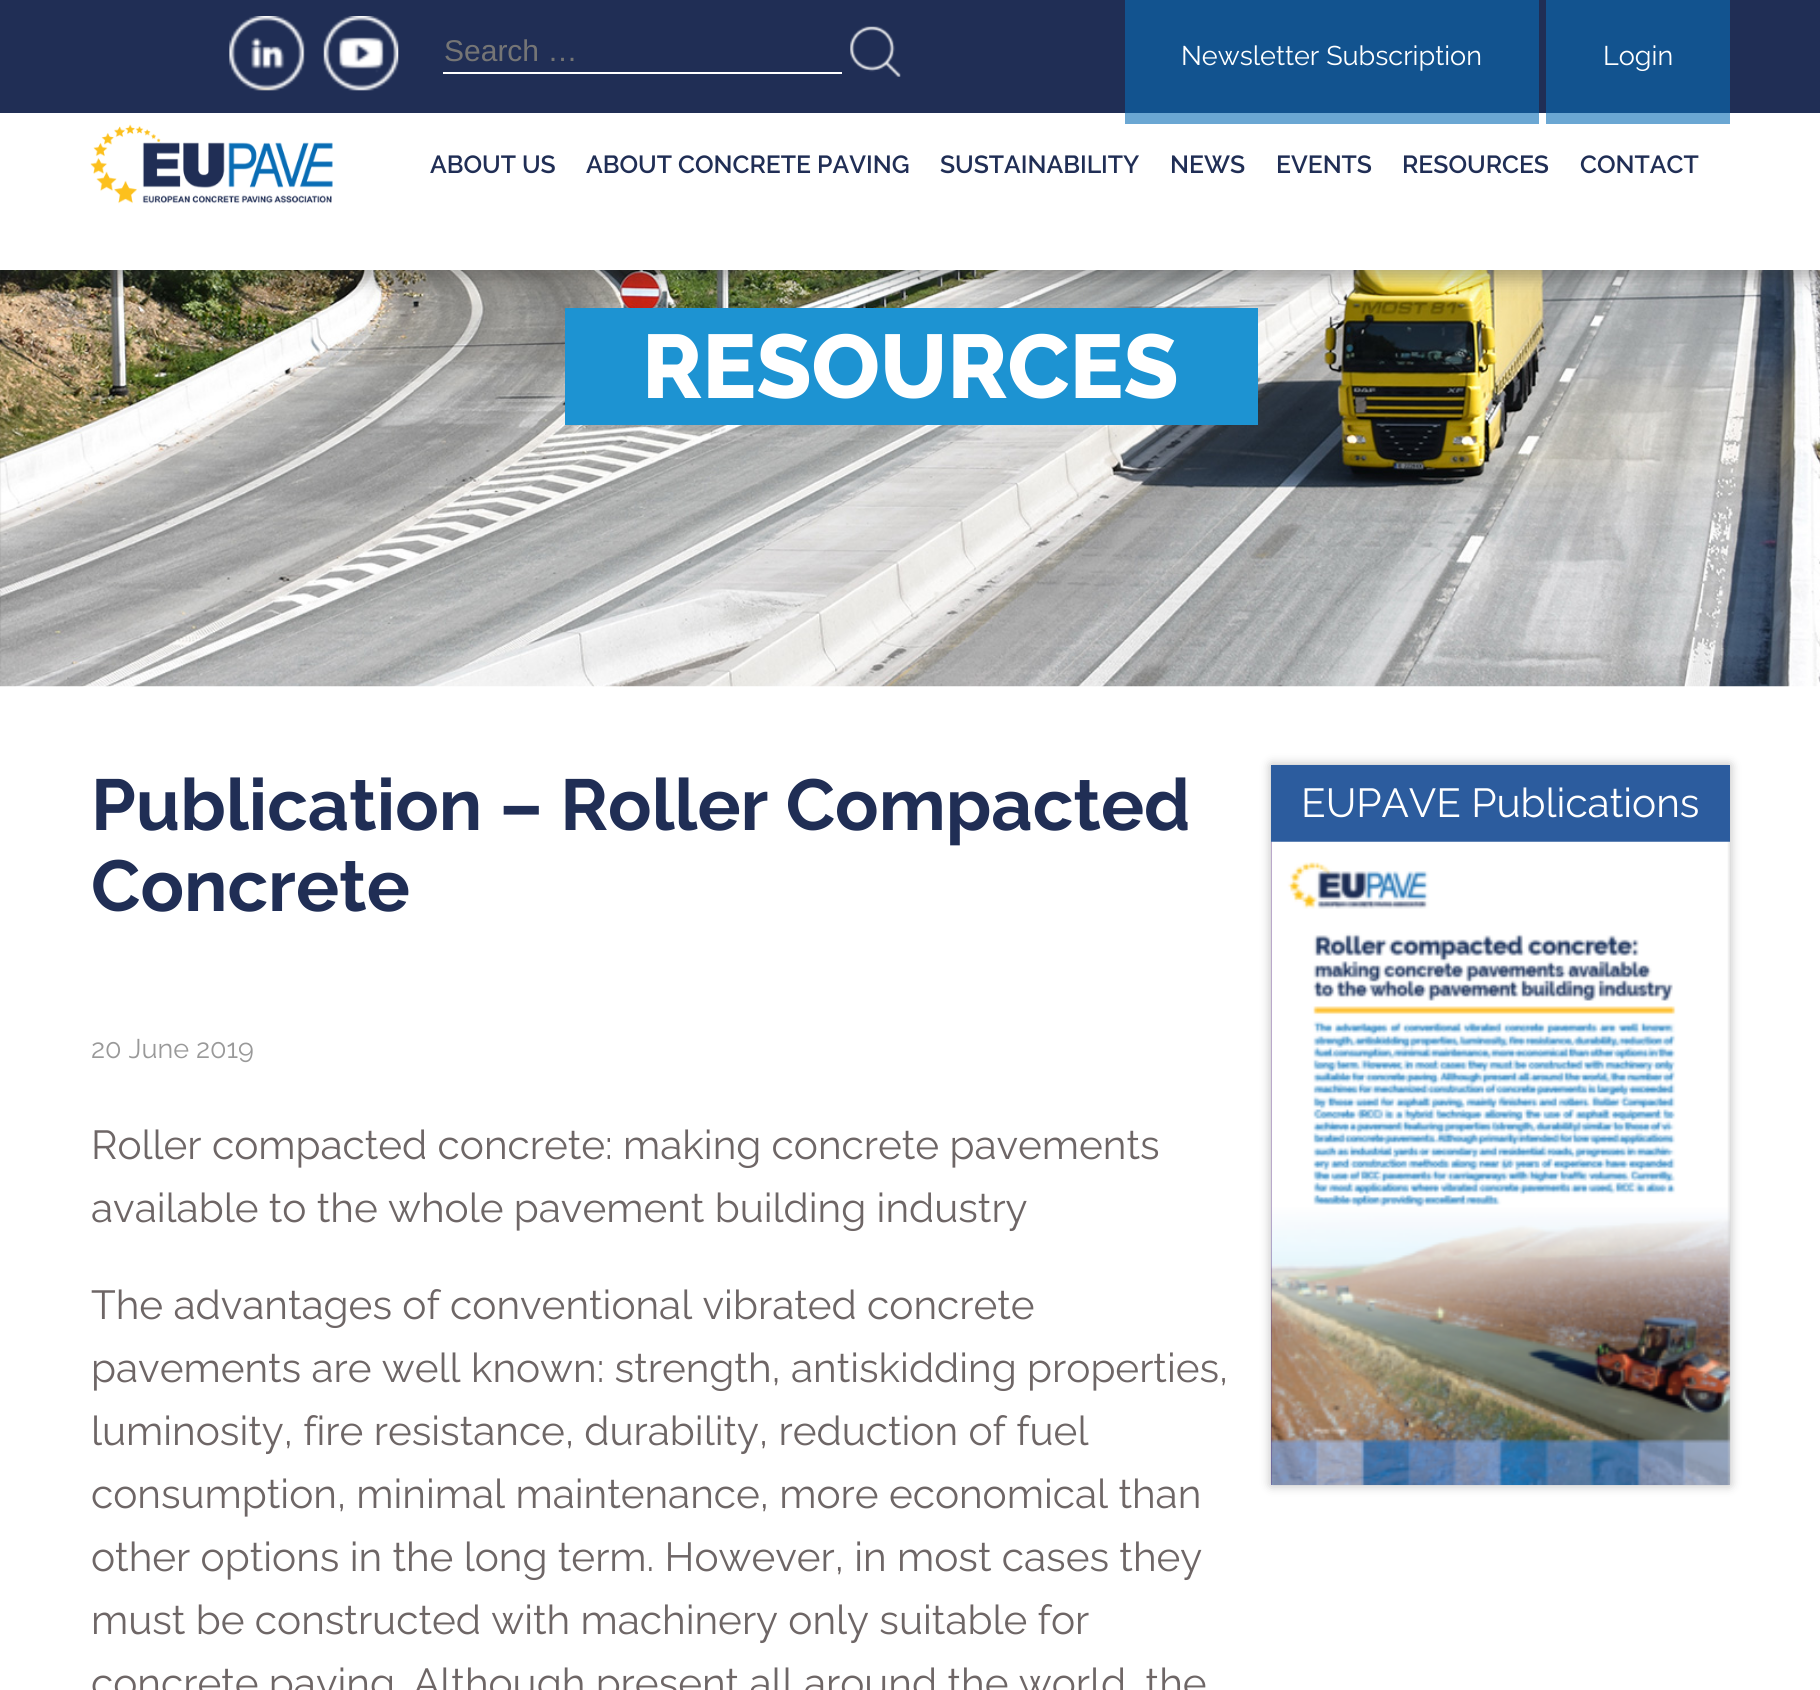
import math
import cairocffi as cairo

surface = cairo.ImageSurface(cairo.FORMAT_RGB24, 1820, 1690)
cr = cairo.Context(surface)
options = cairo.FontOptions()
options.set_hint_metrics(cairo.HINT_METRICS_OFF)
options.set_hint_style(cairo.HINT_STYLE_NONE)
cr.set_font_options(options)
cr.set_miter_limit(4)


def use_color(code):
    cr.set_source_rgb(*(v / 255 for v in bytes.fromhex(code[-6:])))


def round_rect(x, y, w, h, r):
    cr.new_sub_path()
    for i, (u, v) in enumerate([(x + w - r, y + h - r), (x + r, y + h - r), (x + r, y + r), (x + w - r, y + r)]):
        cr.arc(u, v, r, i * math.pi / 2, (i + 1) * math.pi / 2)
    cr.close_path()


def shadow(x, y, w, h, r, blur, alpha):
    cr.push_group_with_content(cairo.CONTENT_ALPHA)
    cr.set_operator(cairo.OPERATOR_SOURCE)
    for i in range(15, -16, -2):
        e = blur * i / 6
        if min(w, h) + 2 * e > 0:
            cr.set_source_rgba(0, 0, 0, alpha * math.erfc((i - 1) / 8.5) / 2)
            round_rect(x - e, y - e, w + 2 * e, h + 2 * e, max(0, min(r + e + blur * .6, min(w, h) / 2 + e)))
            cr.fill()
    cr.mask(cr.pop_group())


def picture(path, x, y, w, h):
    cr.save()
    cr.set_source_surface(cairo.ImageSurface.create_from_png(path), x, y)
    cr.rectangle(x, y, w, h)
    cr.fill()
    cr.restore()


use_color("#ffffff")
cr.paint()
picture("img5.png", 0, 270, 1820, 417)
use_color("#323232")
shadow(0, 9, 1820, 270, 0, 9, 0.36)
use_color("#ffffff")
cr.rectangle(0, 113, 1820, 157)
cr.fill()
use_color("#202e55")
cr.rectangle(0, 0, 1820, 113)
cr.fill()
picture("img1.png", 229, 16, 76, 75)
picture("img2.png", 323, 16, 76, 75)
use_color("#ffffff")
cr.rectangle(443, 72, 399, 2)
cr.fill()
cr.select_font_face("Liberation Sans")
cr.set_font_size(30)
use_color("#757575")
cr.move_to(444, 61)
cr.show_text("Search …")
picture("img3.png", 850, 26, 51, 51)
cr.set_source_rgba(0.035, 0.427, 0.71, 0.6)
cr.rectangle(1125, 0, 414, 124)
cr.fill()
cr.select_font_face("Raleway")
cr.set_font_size(27)
use_color("#ffffff")
cr.move_to(1181, 65)
cr.show_text("Newsletter Subscription")
cr.set_source_rgba(0.035, 0.427, 0.71, 0.6)
cr.rectangle(1546, 0, 184, 124)
cr.fill()
use_color("#ffffff")
cr.move_to(1603, 65)
cr.show_text("Login")
picture("img4.png", 90, 124, 243, 80)
cr.select_font_face("Raleway SemiBold")
cr.set_font_size(24.75)
use_color("#202e55")
cr.move_to(430, 173)
cr.show_text("ABOUT US")
cr.move_to(586, 173)
cr.show_text("ABOUT CONCRETE PAVING")
cr.move_to(940, 173)
cr.show_text("SUSTAINABILITY")
cr.move_to(1170, 173)
cr.show_text("NEWS")
cr.move_to(1276, 173)
cr.show_text("EVENTS")
cr.move_to(1402, 173)
cr.show_text("RESOURCES")
cr.move_to(1580, 173)
cr.show_text("CONTACT")
use_color("#1d93d2")
cr.rectangle(565, 308, 693, 117)
cr.fill()
cr.select_font_face("Raleway ExtraBold")
cr.set_font_size(90)
use_color("#ffffff")
cr.move_to(642, 398)
cr.show_text("RESOURCES")
cr.select_font_face("Raleway", cairo.FONT_SLANT_NORMAL, cairo.FONT_WEIGHT_BOLD)
cr.set_font_size(72)
use_color("#202e55")
cr.move_to(91, 830)
cr.show_text("Publication – Roller Compacted")
cr.move_to(91, 911)
cr.show_text("Concrete")
cr.select_font_face("Raleway")
cr.set_font_size(27)
use_color("#999999")
cr.move_to(91, 1058)
cr.show_text("20 June 2019")
cr.set_font_size(40.5)
use_color("#6e6666")
cr.move_to(91, 1159)
cr.show_text("Roller compacted concrete: making concrete pavements")
cr.move_to(91, 1222)
cr.show_text("available to the whole pavement building industry")
cr.move_to(91, 1319)
cr.show_text("The advantages of conventional vibrated concrete")
cr.move_to(91, 1382)
cr.show_text("pavements are well known: strength, antiskidding properties,")
cr.move_to(91, 1445)
cr.show_text("luminosity, fire resistance, durability, reduction of fuel")
cr.move_to(91, 1508)
cr.show_text("consumption, minimal maintenance, more economical than")
cr.move_to(91, 1571)
cr.show_text("other options in the long term. However, in most cases they")
cr.move_to(91, 1634)
cr.show_text("must be constructed with machinery only suitable for")
cr.move_to(91, 1697)
cr.show_text("concrete paving. Although present all around the world, the")
use_color("#000000")
shadow(1271, 765, 459, 720, 0, 5.5, 0.28)
use_color("#2c5c9e")
cr.rectangle(1271, 765, 459, 77)
cr.fill()
use_color("#ffffff")
cr.move_to(1301, 817)
cr.show_text("EUPAVE Publications")
gradient = cairo.LinearGradient(1223, 1114, 1778, 1212)
gradient.add_color_stop_rgba(0.08, 0.38, 0.22, 0.525, 1)
gradient.add_color_stop_rgba(1, 0.173, 0.361, 0.62, 1)
cr.set_source(gradient)
cr.rectangle(1271, 842, 1, 643)
cr.fill()
picture("img6.png", 1271, 841, 460, 644)
surface.write_to_png("result.png")
